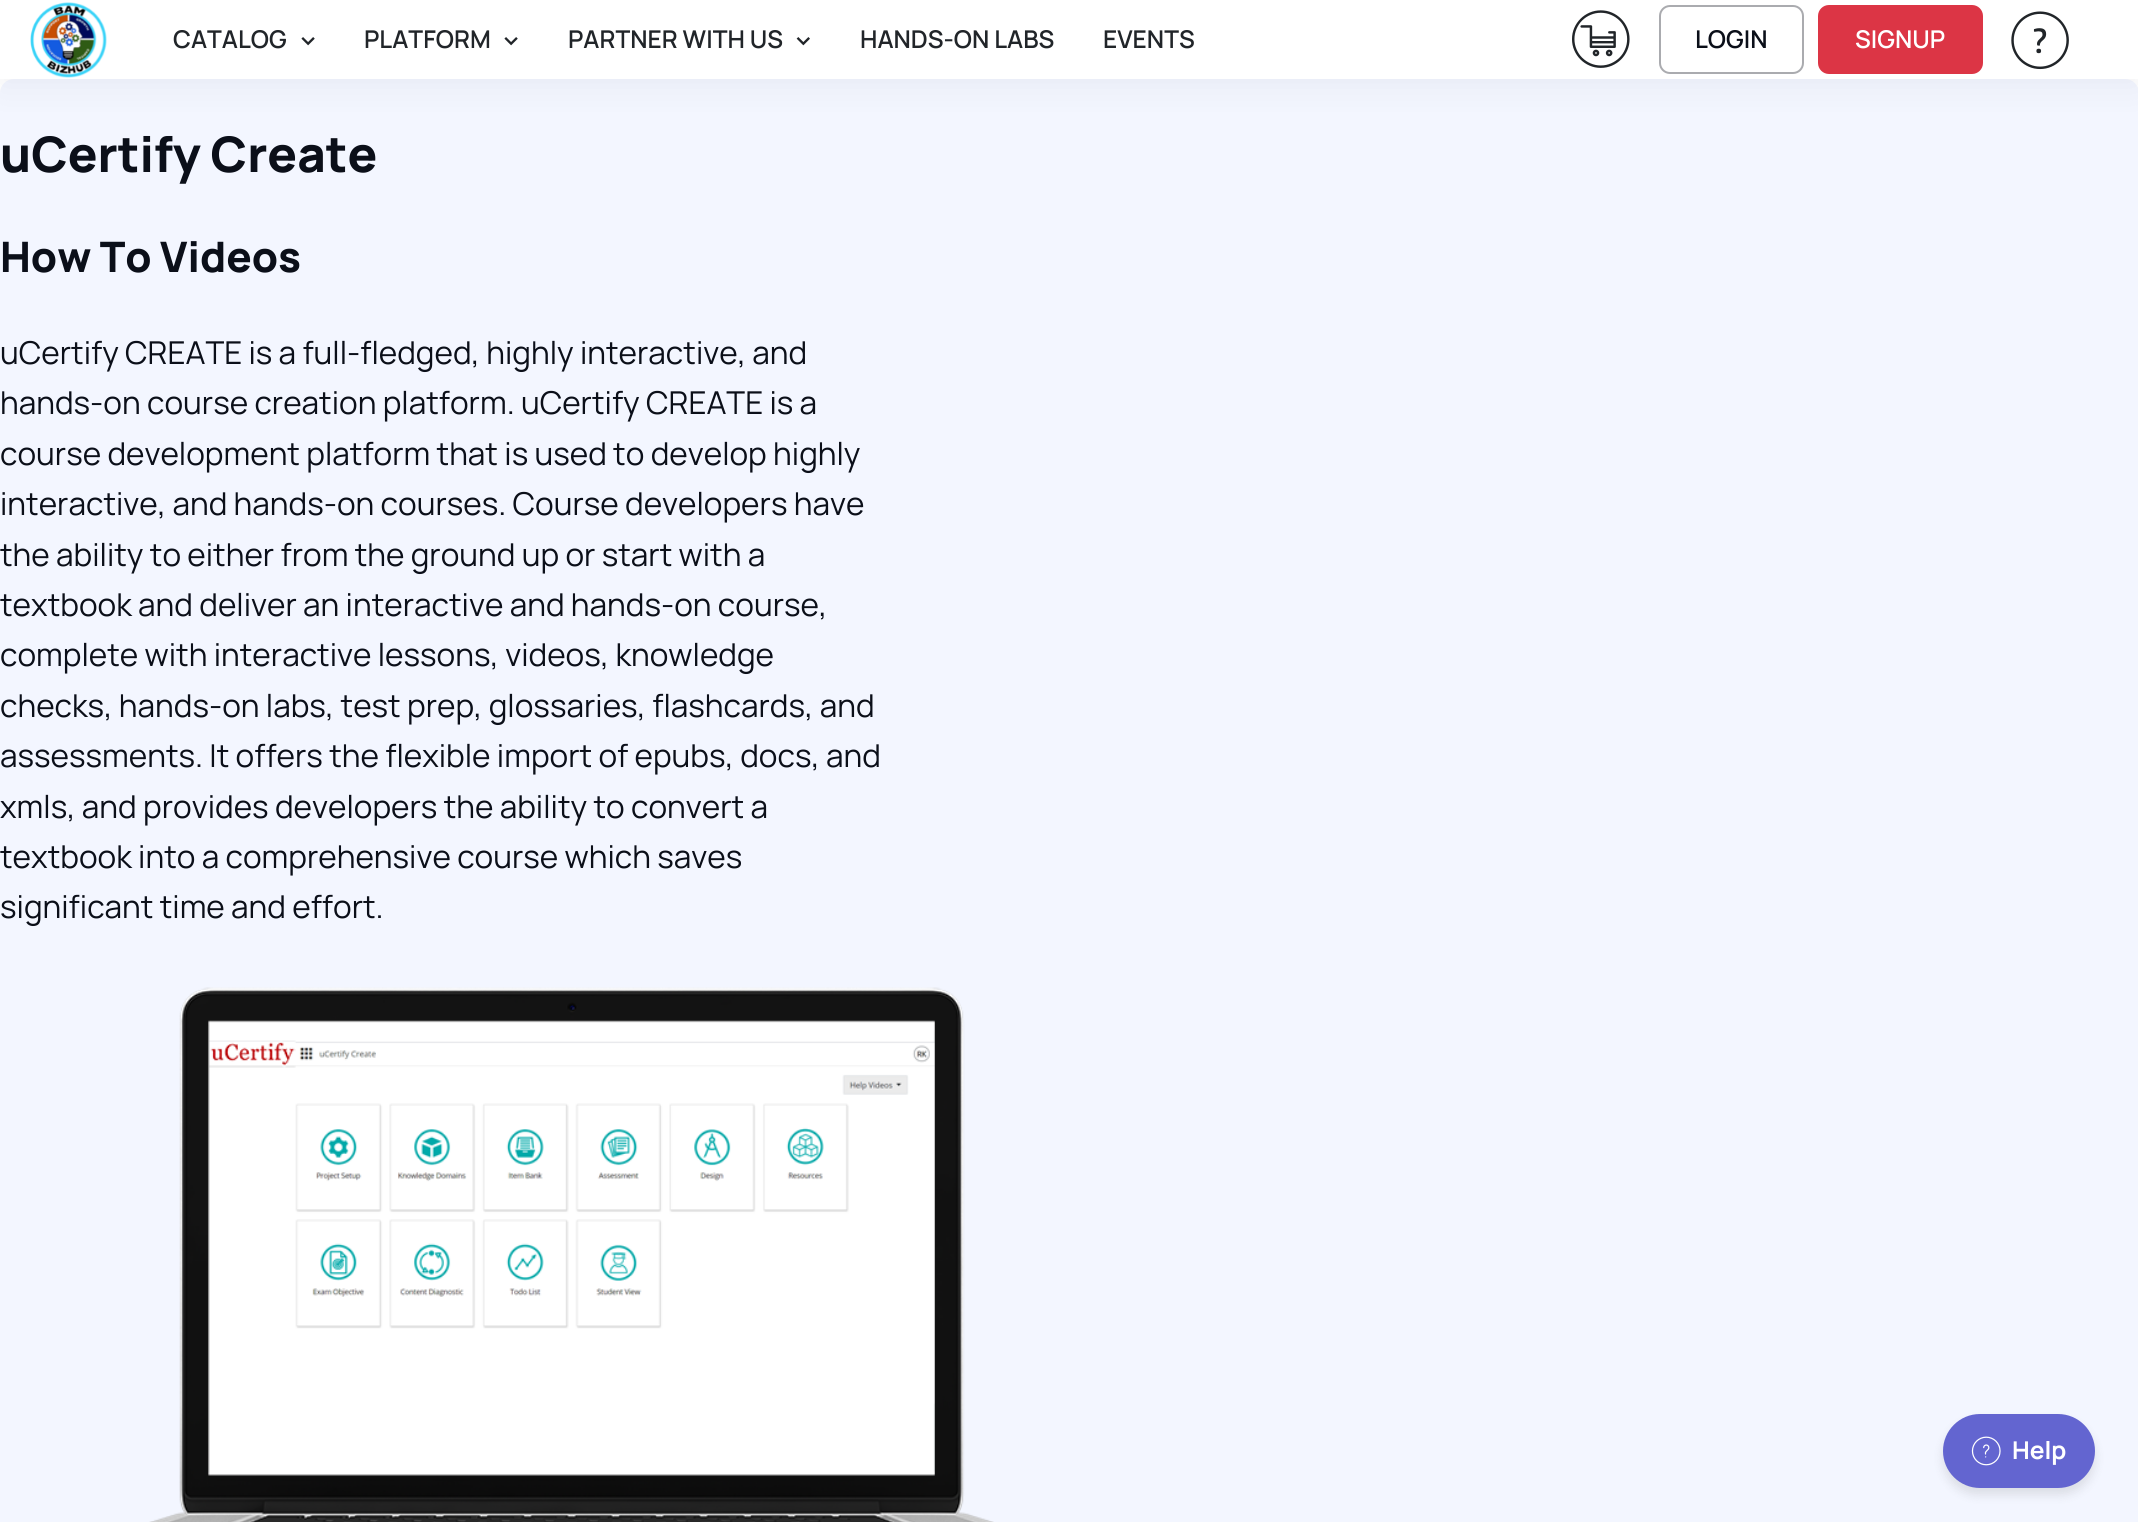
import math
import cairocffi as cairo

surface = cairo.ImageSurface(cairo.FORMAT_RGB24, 2138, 1522)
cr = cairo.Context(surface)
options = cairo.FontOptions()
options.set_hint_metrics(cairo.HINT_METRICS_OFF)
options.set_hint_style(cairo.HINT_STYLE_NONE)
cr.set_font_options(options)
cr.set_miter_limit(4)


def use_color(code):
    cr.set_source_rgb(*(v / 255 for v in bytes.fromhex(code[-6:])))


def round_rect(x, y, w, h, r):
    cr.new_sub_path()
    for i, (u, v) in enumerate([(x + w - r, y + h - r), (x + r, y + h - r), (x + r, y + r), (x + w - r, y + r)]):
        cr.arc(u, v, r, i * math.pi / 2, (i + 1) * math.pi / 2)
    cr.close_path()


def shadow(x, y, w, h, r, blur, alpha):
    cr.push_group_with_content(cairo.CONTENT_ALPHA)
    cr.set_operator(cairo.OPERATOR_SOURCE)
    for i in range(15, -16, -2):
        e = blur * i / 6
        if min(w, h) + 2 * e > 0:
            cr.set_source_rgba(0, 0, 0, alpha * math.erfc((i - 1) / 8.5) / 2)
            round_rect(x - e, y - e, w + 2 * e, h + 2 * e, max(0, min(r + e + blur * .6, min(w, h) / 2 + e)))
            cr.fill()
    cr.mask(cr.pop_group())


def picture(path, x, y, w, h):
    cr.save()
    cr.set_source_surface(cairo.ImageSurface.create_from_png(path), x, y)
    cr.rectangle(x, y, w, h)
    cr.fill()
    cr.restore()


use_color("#ffffff")
cr.paint()
use_color("#f3f6ff")
round_rect(0, 79, 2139, 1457, 14)
cr.fill()
use_color("#0b0f19")
shadow(0, 7, 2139, 79, 0, 17.5, 0.05)
use_color("#ffffff")
cr.rectangle(0, 0, 2138, 79)
cr.fill()
picture("img1.png", 30, 2, 77, 76)
cr.select_font_face("Manrope SemiBold")
cr.set_font_size(24.5)
use_color("#212529")
cr.move_to(173, 48)
cr.show_text("CATALOG")
picture("img2.png", 301, 37, 14, 9)
cr.move_to(364, 48)
cr.show_text("PLATFORM")
picture("img2.png", 504, 37, 14, 9)
cr.move_to(568, 48)
cr.show_text("PARTNER WITH US")
picture("img3.png", 796, 37, 14, 9)
cr.move_to(860, 48)
cr.show_text("HANDS-ON LABS")
cr.move_to(1103, 48)
cr.show_text("EVENTS")
picture("img4.png", 1572, 10, 58, 58)
round_rect(1660, 6, 143, 67, 10)
use_color("#aaabaf")
cr.stroke()
use_color("#0b0f19")
cr.move_to(1695, 48)
cr.show_text("LOGIN")
use_color("#dc3545")
round_rect(1819, 6, 163, 67, 10)
cr.fill_preserve()
cr.stroke()
use_color("#ffffff")
cr.move_to(1855, 48)
cr.show_text("SIGNUP")
picture("img5.png", 2011, 11, 58, 59)
cr.select_font_face("Manrope ExtraBold")
cr.set_font_size(49)
use_color("#0b0f19")
cr.move_to(0, 172)
cr.show_text("uCertify Create")
cr.set_font_size(42)
cr.move_to(0, 272)
cr.show_text("How To Videos")
cr.select_font_face("Manrope")
cr.set_font_size(31.5)
cr.move_to(0, 364)
cr.show_text("uCertify CREATE is a full-fledged, highly interactive, and")
cr.move_to(0, 414)
cr.show_text("hands-on course creation platform. uCertify CREATE is a")
cr.move_to(0, 465)
cr.show_text("course development platform that is used to develop highly")
cr.move_to(0, 515)
cr.show_text("interactive, and hands-on courses. Course developers have")
cr.move_to(0, 566)
cr.show_text("the ability to either from the ground up or start with a")
cr.move_to(0, 616)
cr.show_text("textbook and deliver an interactive and hands-on course,")
cr.move_to(0, 666)
cr.show_text("complete with interactive lessons, videos, knowledge")
cr.move_to(0, 717)
cr.show_text("checks, hands-on labs, test prep, glossaries, flashcards, and")
cr.move_to(0, 767)
cr.show_text("assessments. It offers the flexible import of epubs, docs, and")
cr.move_to(0, 818)
cr.show_text("xmls, and provides developers the ability to convert a")
cr.move_to(0, 868)
cr.show_text("textbook into a comprehensive course which saves")
cr.move_to(0, 918)
cr.show_text("significant time and effort.")
picture("img6.png", 149, 987, 845, 535)
use_color("#000000")
shadow(1943, 1421, 152, 74, 37, 5, 0.1)
use_color("#6365d0")
round_rect(1943, 1414, 152, 74, 37)
cr.fill()
picture("img7.png", 1971, 1436, 30, 30)
cr.select_font_face("Manrope", cairo.FONT_SLANT_NORMAL, cairo.FONT_WEIGHT_BOLD)
cr.set_font_size(24.5)
use_color("#ffffff")
cr.move_to(2012, 1459)
cr.show_text("Help")
surface.write_to_png("result.png")
